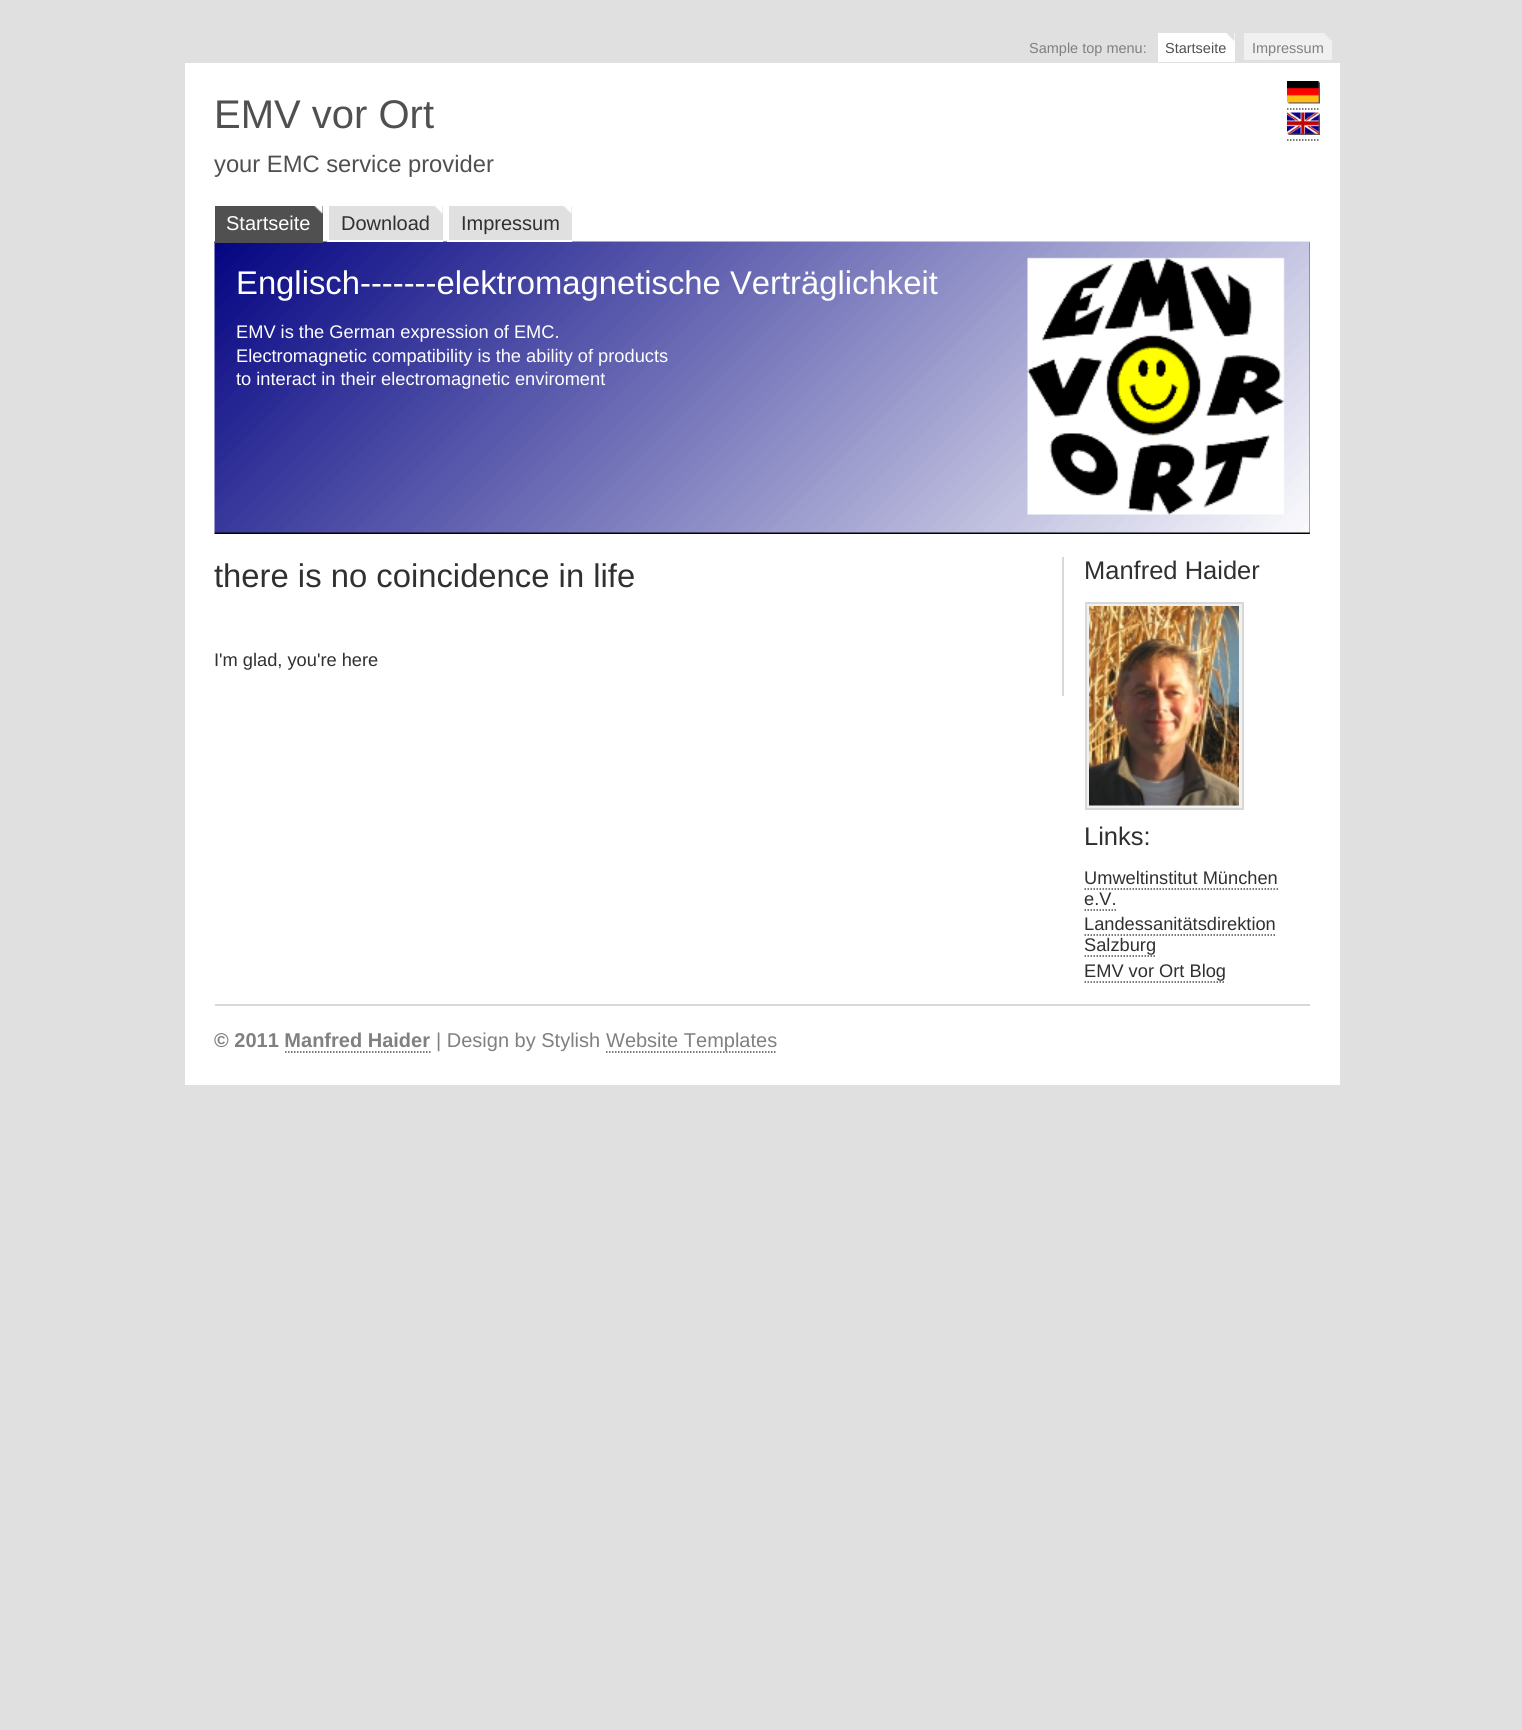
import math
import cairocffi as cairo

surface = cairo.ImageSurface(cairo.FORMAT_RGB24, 1522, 1730)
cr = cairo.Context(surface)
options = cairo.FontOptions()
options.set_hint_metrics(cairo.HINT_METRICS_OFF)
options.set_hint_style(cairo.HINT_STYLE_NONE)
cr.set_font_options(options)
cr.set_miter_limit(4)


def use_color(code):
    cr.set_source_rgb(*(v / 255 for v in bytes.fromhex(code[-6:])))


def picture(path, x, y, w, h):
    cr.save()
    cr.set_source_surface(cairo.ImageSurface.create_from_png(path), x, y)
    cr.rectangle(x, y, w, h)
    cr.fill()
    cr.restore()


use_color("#e0e0e0")
cr.paint()
use_color("#ffffff")
cr.rectangle(1158, 33, 77, 29)
cr.fill()
picture("img1.png", 1227, 33, 8, 8)
use_color("#f0f0f0")
cr.rectangle(1244, 33, 88, 27)
cr.fill()
picture("img2.png", 1324, 33, 8, 8)
cr.select_font_face("Liberation Sans")
cr.set_font_size(14.5)
use_color("#808080")
cr.move_to(1029, 53)
cr.show_text("Sample top menu:")
use_color("#505050")
cr.move_to(1165, 53)
cr.show_text("Startseite")
use_color("#808080")
cr.move_to(1252, 53)
cr.show_text("Impressum")
use_color("#ffffff")
cr.rectangle(185, 63, 1155, 1022)
cr.fill()
cr.set_font_size(40)
use_color("#505050")
cr.move_to(214, 128)
cr.show_text("EMV vor Ort")
cr.set_font_size(23.75)
cr.move_to(214, 172)
cr.show_text("your EMC service provider")
picture("img3.png", 1287, 81, 33, 23)
cr.new_path()
cr.move_to(1287, 109)
cr.line_to(1320, 109)
cr.set_line_width(1.5)
cr.set_dash([1.5, 1.5])
cr.stroke()
picture("img4.png", 1287, 112, 33, 23)
cr.new_path()
cr.move_to(1287, 140)
cr.line_to(1320, 140)
cr.stroke()
cr.rectangle(1309, 242, 1, 292)
cr.fill()
picture("img7.png", 214, 241, 1096, 293)
cr.rectangle(215, 206, 108, 37)
cr.fill()
picture("img5.png", 314, 206, 9, 8)
use_color("#e0e0e0")
cr.rectangle(329, 206, 114, 34)
cr.fill()
picture("img6.png", 435, 206, 8, 8)
cr.rectangle(449, 206, 123, 34)
cr.fill()
picture("img6.png", 564, 206, 8, 8)
cr.set_font_size(20)
use_color("#ffffff")
cr.move_to(226, 230)
cr.show_text("Startseite")
cr.new_path()
cr.move_to(214.5, 242)
cr.line_to(322.5, 242)
use_color("#505050")
cr.stroke()
use_color("#303030")
cr.move_to(341, 230)
cr.show_text("Download")
use_color("#ffffff")
cr.rectangle(327, 241, 116, 1)
cr.fill()
use_color("#303030")
cr.move_to(461, 230)
cr.show_text("Impressum")
use_color("#ffffff")
cr.rectangle(447, 241, 125, 1)
cr.fill()
cr.set_font_size(32.8)
cr.move_to(236, 294)
cr.show_text("Englisch-------elektromagnetische Verträglichkeit")
cr.set_font_size(18.25)
cr.move_to(236, 338)
cr.show_text("EMV is the German expression of EMC.")
cr.move_to(236, 362)
cr.show_text("Electromagnetic compatibility is the ability of products")
cr.move_to(236, 385)
cr.show_text("to interact in their electromagnetic enviroment")
use_color("#d8d8d8")
cr.rectangle(1062, 557, 2, 139)
cr.fill()
cr.set_font_size(32.8)
use_color("#303030")
cr.move_to(214, 587)
cr.show_text("there is no coincidence in life")
cr.set_font_size(18.25)
cr.move_to(214, 666)
cr.show_text("I'm glad, you're here")
cr.set_font_size(25.5)
cr.move_to(1084, 579)
cr.show_text("Manfred Haider")
use_color("#f0f0f0")
cr.rectangle(1086, 603, 157, 206)
cr.fill_preserve()
use_color("#d8d8d8")
cr.set_line_width(2)
cr.set_dash([])
cr.stroke()
picture("img8.png", 1089, 606, 150, 200)
use_color("#303030")
cr.move_to(1084, 845)
cr.show_text("Links:")
cr.set_font_size(18.25)
cr.move_to(1084, 884)
cr.show_text("Umweltinstitut München")
cr.move_to(1084, 905)
cr.show_text("e.V.")
cr.new_path()
cr.move_to(1084.5, 889)
cr.line_to(1278, 889)
use_color("#505050")
cr.set_line_width(1.5)
cr.set_dash([1.5, 1.5])
cr.stroke()
cr.new_path()
cr.move_to(1084.5, 910)
cr.line_to(1116, 910)
cr.stroke()
use_color("#303030")
cr.move_to(1084, 930)
cr.show_text("Landessanitätsdirektion")
cr.move_to(1084, 951)
cr.show_text("Salzburg")
cr.new_path()
cr.move_to(1084.5, 935)
cr.line_to(1275, 935)
use_color("#505050")
cr.stroke()
cr.new_path()
cr.move_to(1084.5, 956)
cr.line_to(1155, 956)
cr.stroke()
use_color("#303030")
cr.move_to(1084, 977)
cr.show_text("EMV vor Ort Blog")
cr.new_path()
cr.move_to(1084.5, 982)
cr.line_to(1225.5, 982)
use_color("#505050")
cr.stroke()
use_color("#d8d8d8")
cr.rectangle(215, 1004, 1095, 2)
cr.fill()
cr.select_font_face("Liberation Sans", cairo.FONT_SLANT_NORMAL, cairo.FONT_WEIGHT_BOLD)
cr.set_font_size(20)
use_color("#808080")
cr.move_to(214, 1047)
cr.show_text("© 2011 Manfred Haider")
cr.new_path()
cr.move_to(285, 1052)
cr.line_to(430.5, 1052)
use_color("#505050")
cr.stroke()
cr.select_font_face("Liberation Sans")
use_color("#808080")
cr.move_to(436, 1047)
cr.show_text("| Design by Stylish")
cr.new_path()
cr.move_to(606, 1052)
cr.line_to(777, 1052)
use_color("#505050")
cr.stroke()
use_color("#808080")
cr.move_to(606, 1047)
cr.show_text("Website Templates")
surface.write_to_png("result.png")
